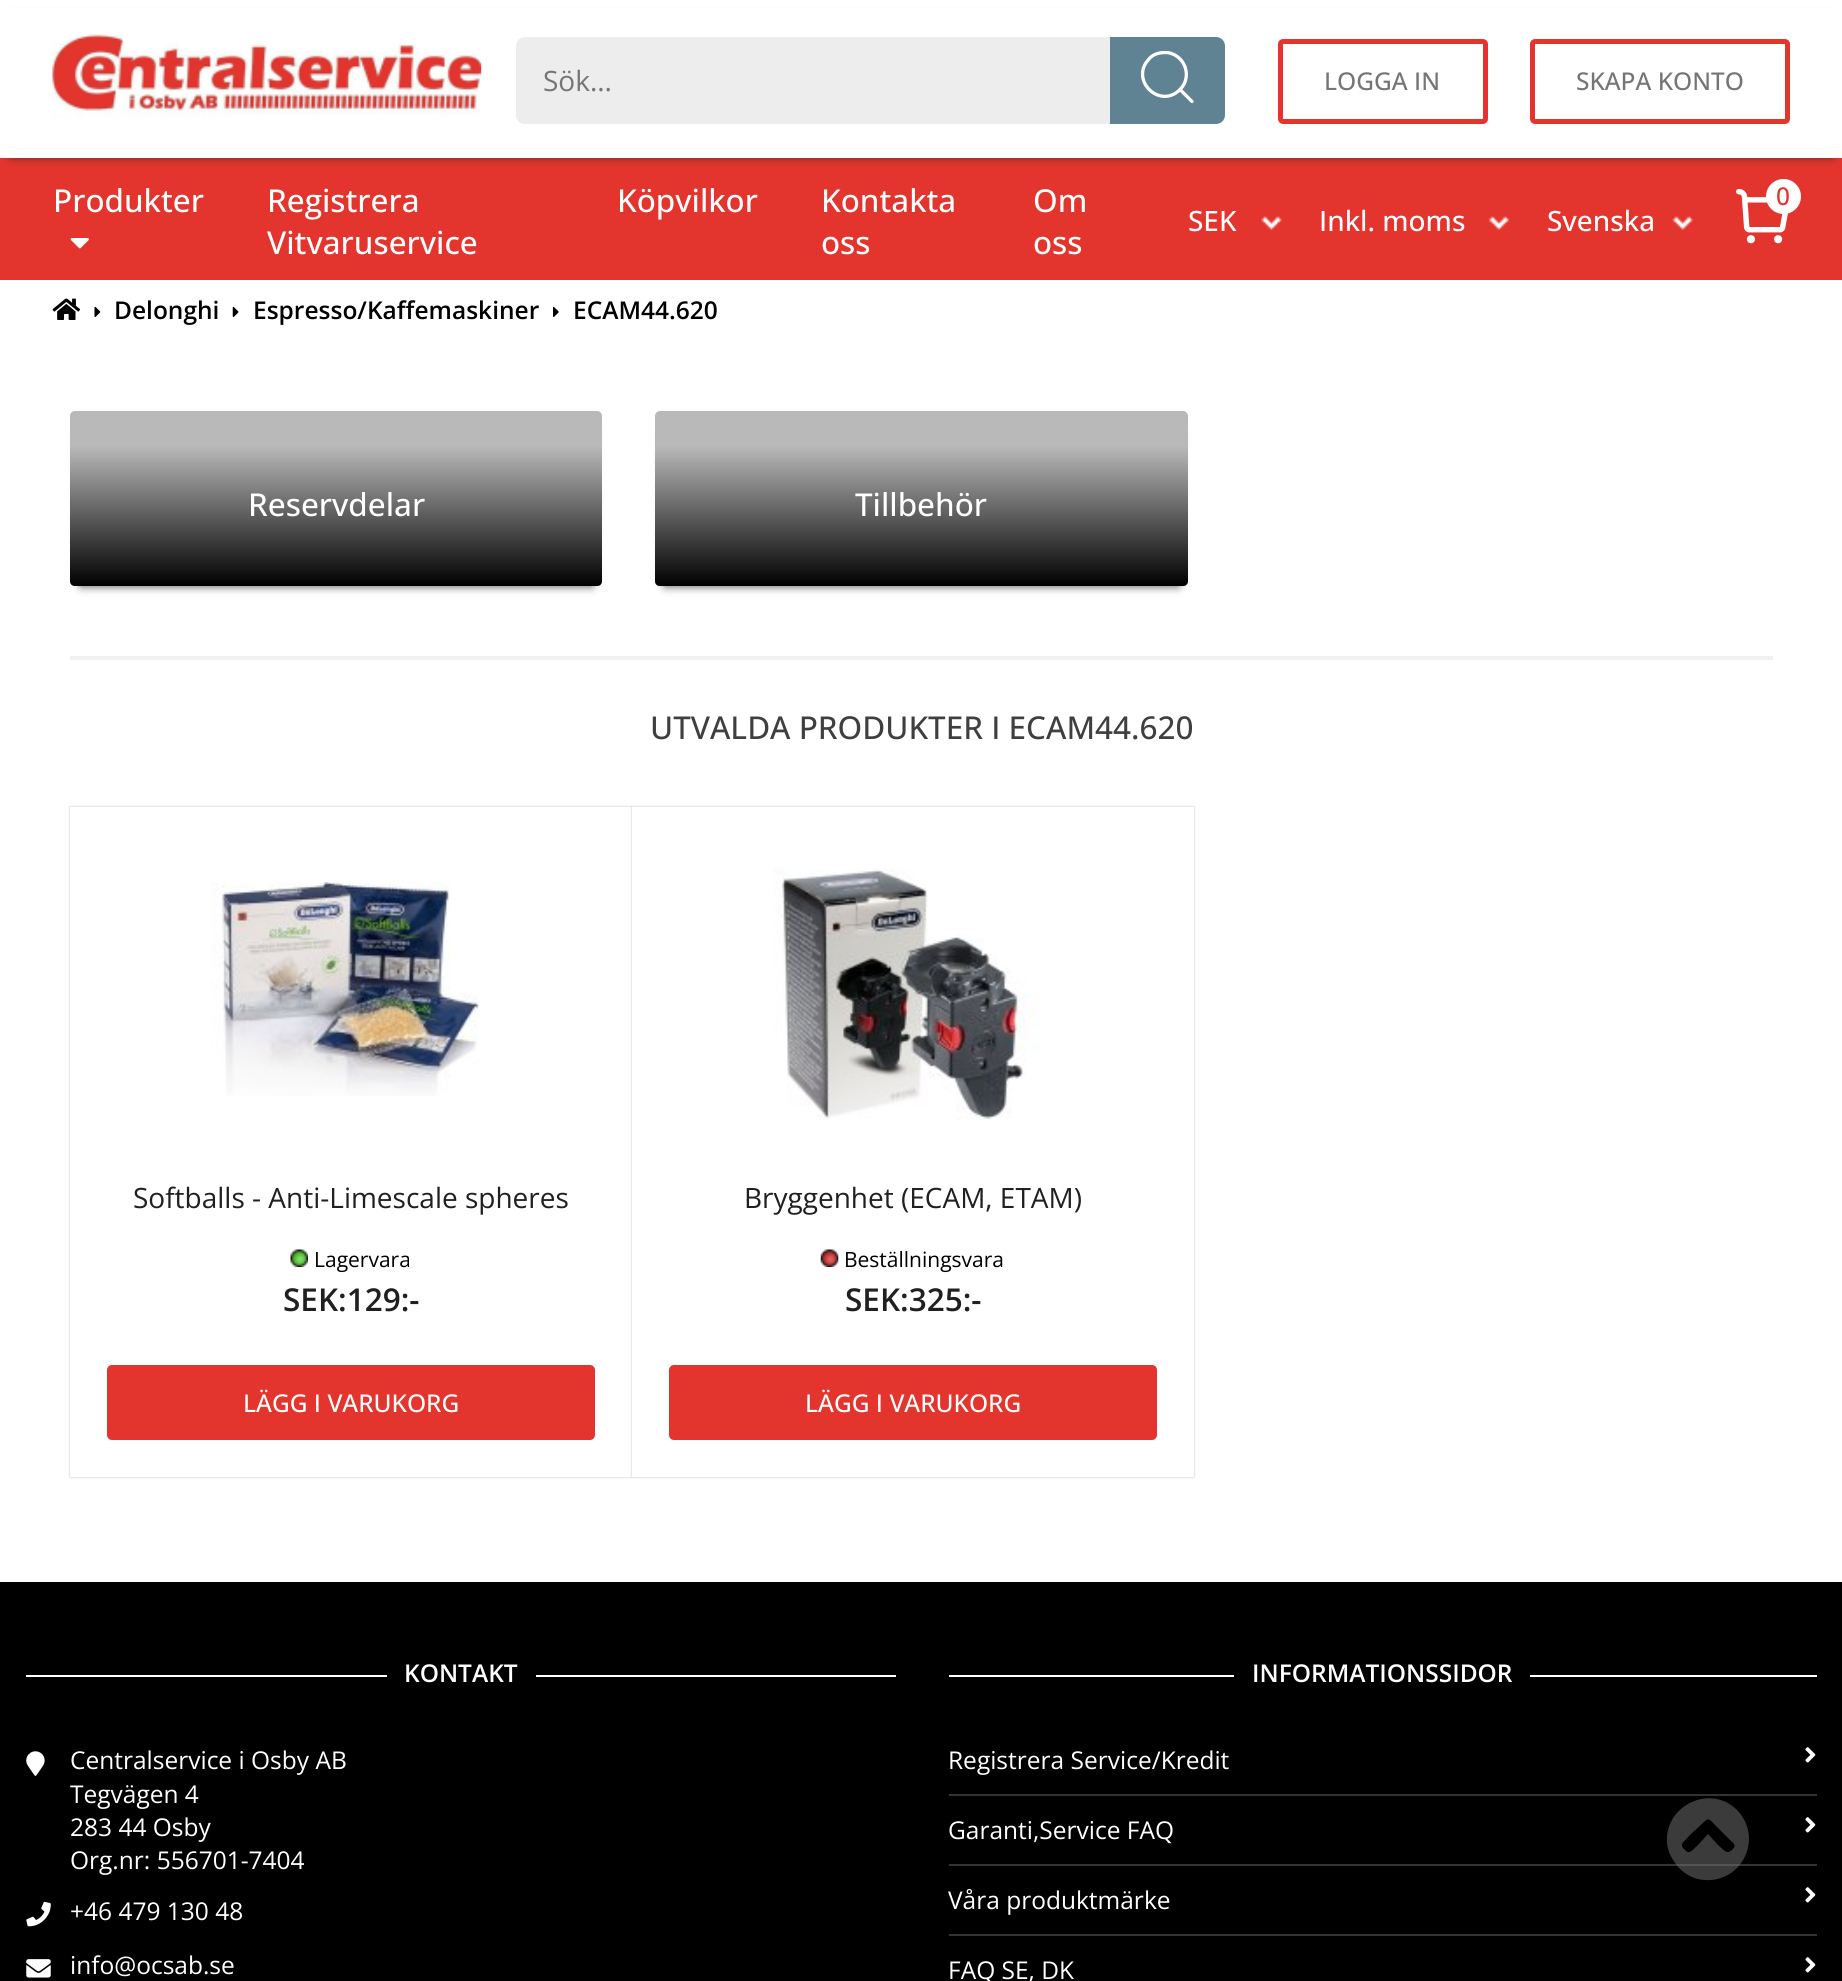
import math
import cairocffi as cairo

surface = cairo.ImageSurface(cairo.FORMAT_RGB24, 1842, 1981)
cr = cairo.Context(surface)
options = cairo.FontOptions()
options.set_hint_metrics(cairo.HINT_METRICS_OFF)
options.set_hint_style(cairo.HINT_STYLE_NONE)
cr.set_font_options(options)
cr.set_miter_limit(4)


def use_color(code):
    cr.set_source_rgb(*(v / 255 for v in bytes.fromhex(code[-6:])))


def round_rect(x, y, w, h, r):
    cr.new_sub_path()
    for i, (u, v) in enumerate([(x + w - r, y + h - r), (x + r, y + h - r), (x + r, y + r), (x + w - r, y + r)]):
        cr.arc(u, v, r, i * math.pi / 2, (i + 1) * math.pi / 2)
    cr.close_path()


def shadow(x, y, w, h, r, blur, alpha):
    cr.push_group_with_content(cairo.CONTENT_ALPHA)
    cr.set_operator(cairo.OPERATOR_SOURCE)
    for i in range(15, -16, -2):
        e = blur * i / 6
        if min(w, h) + 2 * e > 0:
            cr.set_source_rgba(0, 0, 0, alpha * math.erfc((i - 1) / 8.5) / 2)
            round_rect(x - e, y - e, w + 2 * e, h + 2 * e, max(0, min(r + e + blur * .6, min(w, h) / 2 + e)))
            cr.fill()
    cr.mask(cr.pop_group())


def picture(path, x, y, w, h):
    cr.save()
    cr.set_source_surface(cairo.ImageSurface.create_from_png(path), x, y)
    cr.rectangle(x, y, w, h)
    cr.fill()
    cr.restore()


use_color("#ffffff")
cr.paint()
use_color("#e3352d")
cr.rectangle(0, 158, 1842, 122)
cr.fill()
use_color("#222222")
shadow(11, 19, 1821, 137, 0, 5, 1)
use_color("#ffffff")
cr.rectangle(0, 8, 1842, 150)
cr.fill()
picture("img1.png", 52, 34, 430, 85)
use_color("#ededed")
cr.new_path()
cr.move_to(525, 37)
cr.line_to(1110, 37)
cr.line_to(1110, 124)
cr.line_to(525, 124)
cr.curve_to(520, 124, 516, 120, 516, 115)
cr.line_to(516, 46)
cr.curve_to(516, 41, 520, 37, 525, 37)
cr.close_path()
cr.fill()
cr.select_font_face("Open Sans")
cr.set_font_size(28)
use_color("#757575")
cr.move_to(543, 91)
cr.show_text("Sök...")
use_color("#5f8392")
cr.new_path()
cr.move_to(1110, 37)
cr.line_to(1216, 37)
cr.curve_to(1221, 37, 1225, 41, 1225, 46)
cr.line_to(1225, 115)
cr.curve_to(1225, 120, 1221, 124, 1216, 124)
cr.line_to(1110, 124)
cr.close_path()
cr.fill()
cr.save()
cr.rectangle(1141, 51, 53, 52)
cr.clip()
cr.new_path()
cr.move_to(1192, 101.5)
cr.line_to(1180, 89.5)
cr.move_to(1180, 89.5)
cr.curve_to(1195, 74.5, 1181.5, 48.5, 1160, 53)
cr.curve_to(1156, 53.5, 1152, 55.5, 1149, 59)
cr.curve_to(1129, 80, 1160, 110, 1180, 89.5)
cr.close_path()
use_color("#ffffff")
cr.set_line_width(3.3)
cr.set_line_cap(cairo.LINE_CAP_ROUND)
cr.set_line_join(cairo.LINE_JOIN_ROUND)
cr.stroke()
cr.restore()
round_rect(1280.5, 41.5, 205, 80, 2.5)
use_color("#e3352d")
cr.set_line_width(5)
cr.stroke()
cr.select_font_face("Open Sans Medium")
cr.set_font_size(24.5)
use_color("#757575")
cr.move_to(1324, 90)
cr.show_text("LOGGA IN")
round_rect(1532.5, 41.5, 255, 80, 2.5)
use_color("#e3352d")
cr.stroke()
use_color("#757575")
cr.move_to(1576, 90)
cr.show_text("SKAPA KONTO")
cr.set_font_size(31.5)
use_color("#ffffff")
cr.move_to(53, 212)
cr.show_text("Produkter")
picture("img2.png", 70, 238, 19, 11)
cr.move_to(267, 212)
cr.show_text("Registrera")
cr.move_to(267, 254)
cr.show_text("Vitvaruservice")
cr.move_to(617, 212)
cr.show_text("Köpvilkor")
cr.move_to(821, 212)
cr.show_text("Kontakta")
cr.move_to(821, 254)
cr.show_text("oss")
cr.move_to(1033, 212)
cr.show_text("Om")
cr.move_to(1033, 254)
cr.show_text("oss")
picture("img3.png", 1736, 189, 52, 55)
cr.arc(1783.5, 196.5, 17.5, 0, 2 * math.pi)
cr.fill()
cr.set_font_size(24.5)
use_color("#e3352d")
cr.move_to(1776, 205)
cr.show_text("0")
picture("img4.png", 1261, 216, 21, 14)
cr.set_font_size(28)
use_color("#ffffff")
cr.move_to(1188, 231)
cr.show_text("SEK")
picture("img5.png", 1488, 216, 21, 14)
cr.move_to(1319, 231)
cr.show_text("Inkl. moms")
picture("img6.png", 1672, 216, 21, 14)
cr.move_to(1547, 231)
cr.show_text("Svenska")
picture("img7.png", 52, 298, 29, 22)
picture("img8.png", 94, 306, 7, 11)
cr.select_font_face("Open Sans SemiBold")
cr.set_font_size(24.5)
use_color("#000000")
cr.move_to(114, 319)
cr.show_text("Delonghi")
picture("img9.png", 232, 306, 7, 11)
cr.move_to(253, 319)
cr.show_text("Espresso/Kaffemaskiner")
picture("img10.png", 553, 306, 6, 11)
cr.move_to(573, 319)
cr.show_text("ECAM44.620")
use_color("#f1f1f1")
cr.rectangle(70, 656, 1703, 4)
cr.fill()
use_color("#222222")
shadow(81, 431, 511, 154, 0, 5, 1)
use_color("#b9b9b9")
round_rect(70, 411, 532, 175, 5)
cr.fill()
gradient = cairo.LinearGradient(336, 446, 336, 586)
gradient.add_color_stop_rgba(0, 0, 0, 0, 0)
gradient.add_color_stop_rgba(1, 0, 0, 0, 1)
cr.set_source(gradient)
cr.new_path()
cr.move_to(70, 446)
cr.line_to(602, 446)
cr.line_to(602, 581)
cr.curve_to(602, 584, 600, 586, 597, 586)
cr.line_to(75, 586)
cr.curve_to(72, 586, 70, 584, 70, 581)
cr.close_path()
cr.fill()
cr.select_font_face("Open Sans Medium")
cr.set_font_size(31.5)
use_color("#ffffff")
cr.move_to(248, 516)
cr.show_text("Reservdelar")
use_color("#222222")
shadow(665, 431, 513, 154, 0, 5, 1)
use_color("#b9b9b9")
round_rect(655, 411, 533, 175, 5)
cr.fill()
gradient = cairo.LinearGradient(921, 446, 921, 586)
gradient.add_color_stop_rgba(0, 0, 0, 0, 0)
gradient.add_color_stop_rgba(1, 0, 0, 0, 1)
cr.set_source(gradient)
cr.new_path()
cr.move_to(655, 446)
cr.line_to(1188, 446)
cr.line_to(1188, 581)
cr.curve_to(1188, 584, 1186, 586, 1183, 586)
cr.line_to(660, 586)
cr.curve_to(657, 586, 655, 584, 655, 581)
cr.close_path()
cr.fill()
use_color("#ffffff")
cr.move_to(855, 516)
cr.show_text("Tillbehör")
use_color("#3f3f3f")
cr.move_to(650, 739)
cr.show_text("UTVALDA PRODUKTER I ECAM44.620")
use_color("#bcbcbc")
shadow(70, 807, 562, 670, 0, 1, 1)
use_color("#ffffff")
cr.rectangle(70, 807, 562, 670)
cr.fill()
picture("img11.png", 211, 882, 268, 214)
cr.select_font_face("Open Sans")
cr.set_font_size(28)
use_color("#202020")
cr.move_to(133, 1208)
cr.show_text("Softballs - Anti-Limescale spheres")
picture("img12.png", 290, 1249, 18, 18)
cr.set_font_size(21)
use_color("#000000")
cr.move_to(314, 1267)
cr.show_text("Lagervara")
cr.select_font_face("Open Sans SemiBold")
cr.set_font_size(31.5)
use_color("#202020")
cr.move_to(283, 1311)
cr.show_text("SEK:129:-")
use_color("#e3352d")
round_rect(107, 1365, 488, 75, 5)
cr.fill()
cr.select_font_face("Open Sans Medium")
cr.set_font_size(24.5)
use_color("#ffffff")
cr.move_to(243, 1412)
cr.show_text("LÄGG I VARUKORG")
use_color("#bcbcbc")
shadow(632, 807, 562, 670, 0, 1, 1)
use_color("#ffffff")
cr.rectangle(632, 807, 562, 670)
cr.fill()
picture("img13.png", 774, 868, 266, 252)
cr.select_font_face("Open Sans")
cr.set_font_size(28)
use_color("#202020")
cr.move_to(744, 1208)
cr.show_text("Bryggenhet (ECAM, ETAM)")
picture("img14.png", 820, 1249, 19, 18)
cr.set_font_size(21)
use_color("#000000")
cr.move_to(844, 1267)
cr.show_text("Beställningsvara")
cr.select_font_face("Open Sans SemiBold")
cr.set_font_size(31.5)
use_color("#202020")
cr.move_to(845, 1311)
cr.show_text("SEK:325:-")
use_color("#e3352d")
round_rect(669, 1365, 488, 75, 5)
cr.fill()
cr.select_font_face("Open Sans Medium")
cr.set_font_size(24.5)
use_color("#ffffff")
cr.move_to(805, 1412)
cr.show_text("LÄGG I VARUKORG")
use_color("#000000")
cr.rectangle(0, 1582, 1842, 399)
cr.fill()
use_color("#333333")
cr.rectangle(949, 1864, 868, 2)
cr.fill()
cr.set_source_rgba(0.467, 0.467, 0.467, 0.5)
cr.new_path()
cr.move_to(1679, 1868)
cr.curve_to(1673, 1861, 1668, 1853, 1667, 1843)
cr.curve_to(1664, 1806, 1710, 1783, 1737, 1810)
cr.curve_to(1764, 1838, 1742, 1883, 1704, 1880)
cr.curve_to(1694, 1879, 1686, 1875, 1679, 1868)
cr.close_path()
cr.move_to(1705, 1821)
cr.line_to(1690, 1835)
cr.curve_to(1683, 1843, 1678, 1844, 1686, 1851)
cr.curve_to(1690, 1855, 1694, 1848, 1697, 1846)
cr.line_to(1708, 1834)
cr.line_to(1719, 1846)
cr.curve_to(1721, 1847, 1725, 1853, 1729, 1852)
cr.line_to(1732, 1850)
cr.curve_to(1737, 1845, 1734, 1844, 1729, 1839)
cr.line_to(1714, 1824)
cr.curve_to(1712, 1822, 1709, 1817, 1705, 1821)
cr.close_path()
cr.fill()
use_color("#ffffff")
cr.rectangle(26, 1675, 870, 2)
cr.fill()
use_color("#000000")
cr.rectangle(387, 1675, 149, 2)
cr.fill()
cr.select_font_face("Open Sans SemiBold")
use_color("#ffffff")
cr.move_to(404, 1682)
cr.show_text("KONTAKT")
picture("img15.png", 26, 1751, 19, 25)
cr.select_font_face("Open Sans")
cr.move_to(70, 1769)
cr.show_text("Centralservice i Osby AB")
cr.move_to(70, 1803)
cr.show_text("Tegvägen 4")
cr.move_to(70, 1836)
cr.show_text("283 44 Osby")
cr.move_to(70, 1869)
cr.show_text("Org.nr: 556701-7404")
picture("img16.png", 26, 1901, 25, 26)
cr.move_to(70, 1920)
cr.show_text("+46 479 130 48")
picture("img17.png", 26, 1959, 25, 19)
cr.move_to(70, 1974)
cr.show_text("info@ocsab.se")
cr.rectangle(949, 1675, 868, 2)
cr.fill()
use_color("#000000")
cr.rectangle(1234, 1675, 296, 2)
cr.fill()
cr.select_font_face("Open Sans SemiBold")
use_color("#ffffff")
cr.move_to(1252, 1682)
cr.show_text("INFORMATIONSSIDOR")
cr.select_font_face("Open Sans")
cr.move_to(948, 1769)
cr.show_text("Registrera Service/Kredit")
picture("img18.png", 1805, 1747, 11, 16)
use_color("#333333")
cr.rectangle(949, 1794, 868, 2)
cr.fill()
use_color("#ffffff")
cr.move_to(948, 1839)
cr.show_text("Garanti,Service FAQ")
picture("img18.png", 1805, 1817, 11, 16)
cr.move_to(948, 1909)
cr.show_text("Våra produktmärke")
picture("img18.png", 1805, 1887, 11, 16)
use_color("#333333")
cr.rectangle(949, 1934, 868, 2)
cr.fill()
use_color("#ffffff")
cr.move_to(948, 1979)
cr.show_text("FAQ SE, DK")
picture("img18.png", 1805, 1957, 11, 16)
surface.write_to_png("result.png")
